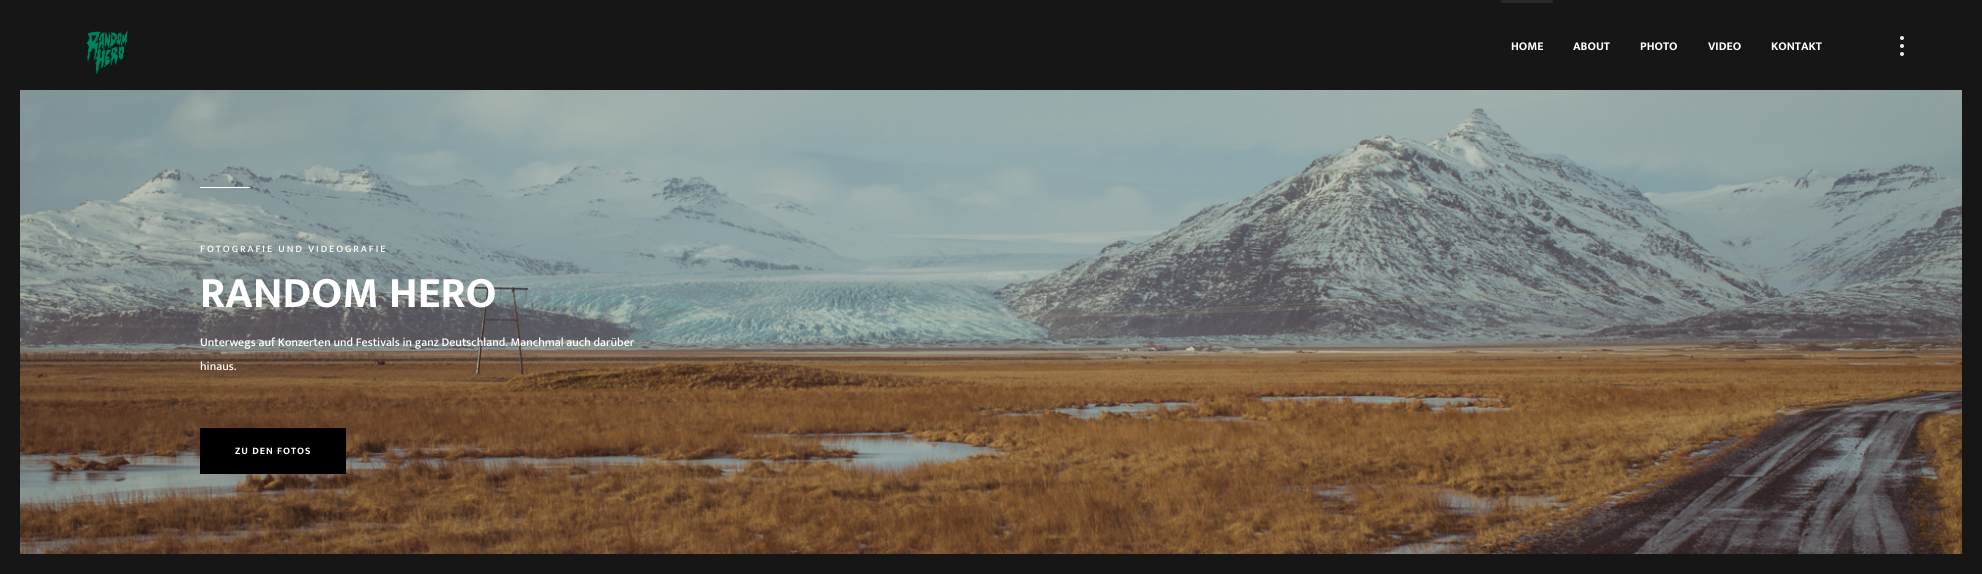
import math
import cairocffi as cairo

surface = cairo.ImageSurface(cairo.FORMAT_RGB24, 1982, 574)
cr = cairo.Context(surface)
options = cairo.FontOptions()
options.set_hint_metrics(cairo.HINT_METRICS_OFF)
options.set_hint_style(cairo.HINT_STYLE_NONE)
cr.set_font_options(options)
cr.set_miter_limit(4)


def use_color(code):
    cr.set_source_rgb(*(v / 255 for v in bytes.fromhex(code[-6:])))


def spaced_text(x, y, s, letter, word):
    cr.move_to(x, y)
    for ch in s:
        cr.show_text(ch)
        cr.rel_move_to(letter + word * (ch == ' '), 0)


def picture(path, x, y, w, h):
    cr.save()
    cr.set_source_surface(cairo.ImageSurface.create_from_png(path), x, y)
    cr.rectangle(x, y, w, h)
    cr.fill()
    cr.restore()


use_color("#161616")
cr.paint()
picture("img1.png", 86, 30, 42, 45)
use_color("#292929")
cr.rectangle(1501, 0, 52, 3)
cr.fill()
cr.select_font_face("Ek Mukta", cairo.FONT_SLANT_NORMAL, cairo.FONT_WEIGHT_BOLD)
cr.set_font_size(12)
use_color("#ffffff")
cr.move_to(1511, 50)
cr.show_text("HOME")
cr.move_to(1573, 50)
cr.show_text("ABOUT")
cr.move_to(1640, 50)
cr.show_text("PHOTO")
cr.move_to(1708, 50)
cr.show_text("VIDEO")
cr.move_to(1771, 50)
cr.show_text("KONTAKT")
use_color("#e8e8e8")
cr.new_path()
cr.arc(1902, 38, 2, 0, 2 * math.pi)
cr.fill()
cr.arc(1902, 46, 2, 0, 2 * math.pi)
cr.fill()
cr.arc(1902, 54, 2, 0, 2 * math.pi)
cr.fill()
picture("img2.png", 20, 90, 1942, 464)
cr.select_font_face("Ek Mukta Medium")
cr.set_font_size(10)
use_color("#ffffff")
spaced_text(200, 252, "FOTOGRAFIE UND VIDEOGRAFIE", 2, 0)
cr.rectangle(200, 187, 50, 1)
cr.fill()
cr.select_font_face("Ek Mukta", cairo.FONT_SLANT_NORMAL, cairo.FONT_WEIGHT_BOLD)
cr.set_font_size(44)
cr.move_to(200, 307)
cr.show_text("RANDOM HERO")
cr.select_font_face("Ek Mukta Medium")
cr.set_font_size(12)
cr.move_to(200, 346)
cr.show_text("Unterwegs auf Konzerten und Festivals in ganz Deutschland. Manchmal auch darüber")
cr.move_to(200, 370)
cr.show_text("hinaus.")
use_color("#000000")
cr.rectangle(200, 428, 146, 46)
cr.fill()
cr.select_font_face("Ek Mukta", cairo.FONT_SLANT_NORMAL, cairo.FONT_WEIGHT_BOLD)
cr.set_font_size(10)
use_color("#ffffff")
spaced_text(235, 454, "ZU DEN FOTOS", 1, 0)
surface.write_to_png("result.png")
